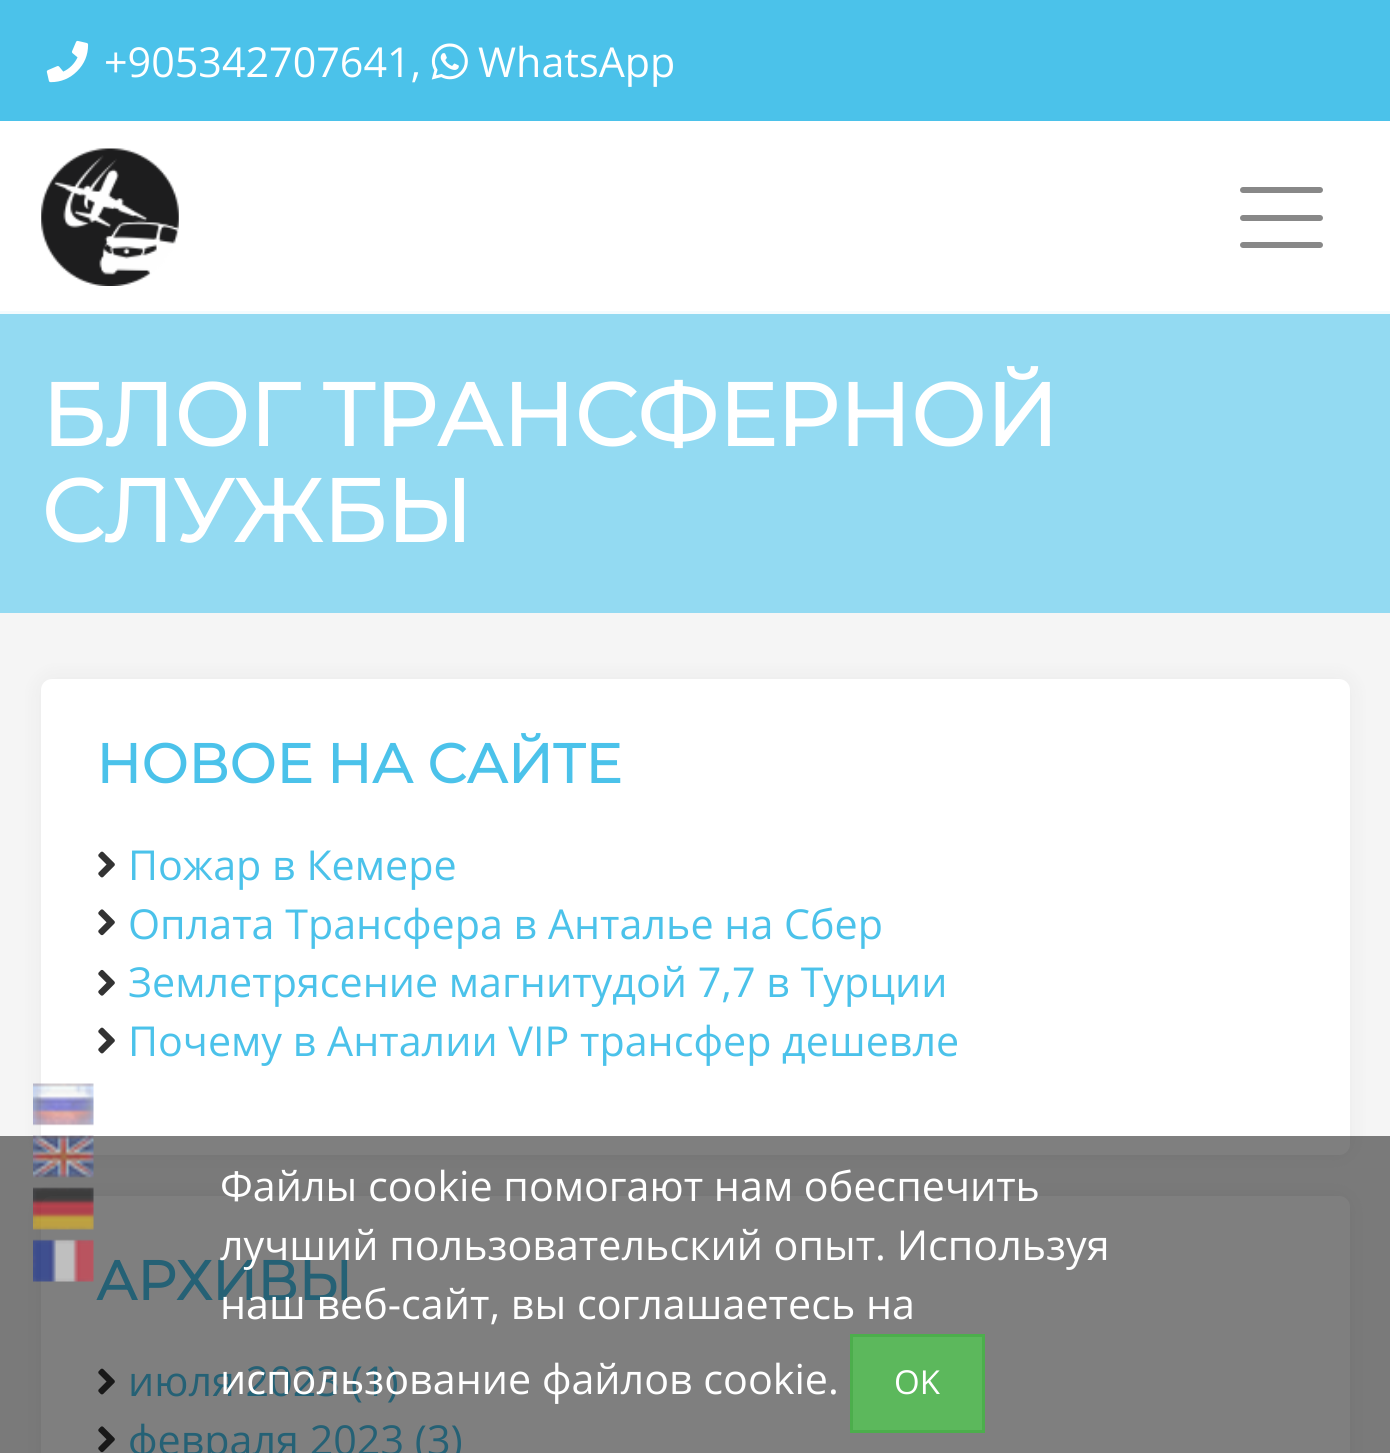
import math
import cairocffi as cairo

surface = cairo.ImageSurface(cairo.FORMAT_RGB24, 1390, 1453)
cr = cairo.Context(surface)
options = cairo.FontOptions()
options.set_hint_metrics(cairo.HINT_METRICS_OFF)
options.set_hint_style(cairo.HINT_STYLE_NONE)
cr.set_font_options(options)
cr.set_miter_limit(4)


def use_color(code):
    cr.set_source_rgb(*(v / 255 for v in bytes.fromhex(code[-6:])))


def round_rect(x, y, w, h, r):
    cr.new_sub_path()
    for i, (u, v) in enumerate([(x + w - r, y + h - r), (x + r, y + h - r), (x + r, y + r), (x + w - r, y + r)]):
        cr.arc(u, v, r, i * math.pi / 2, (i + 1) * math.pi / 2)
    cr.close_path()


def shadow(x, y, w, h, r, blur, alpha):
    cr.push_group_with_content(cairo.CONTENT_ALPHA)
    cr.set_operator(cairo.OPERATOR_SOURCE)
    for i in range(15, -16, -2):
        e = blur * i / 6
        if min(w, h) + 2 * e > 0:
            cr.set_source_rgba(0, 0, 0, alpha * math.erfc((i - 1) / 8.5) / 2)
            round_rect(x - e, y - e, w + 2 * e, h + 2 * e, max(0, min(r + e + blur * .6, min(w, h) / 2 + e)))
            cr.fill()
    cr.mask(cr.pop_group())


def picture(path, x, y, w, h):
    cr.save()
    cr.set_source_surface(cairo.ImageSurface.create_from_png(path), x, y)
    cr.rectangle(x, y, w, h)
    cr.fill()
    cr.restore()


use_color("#ffffff")
cr.paint()
use_color("#4bc2ea")
cr.rectangle(0, 0, 1390, 121)
cr.fill()
picture("img1.png", 46, 40, 43, 43)
cr.select_font_face("Open Sans")
cr.set_font_size(41.25)
use_color("#ffffff")
cr.move_to(104, 77)
cr.show_text("+905342707641,")
picture("img2.png", 431, 43, 37, 37)
cr.move_to(478, 77)
cr.show_text("WhatsApp")
picture("img3.png", 41, 148, 138, 138)
use_color("#888888")
round_rect(1240, 187, 83, 6, 3)
cr.fill()
round_rect(1240, 215, 83, 6, 3)
cr.fill()
round_rect(1240, 242, 83, 6, 3)
cr.fill()
gradient = cairo.LinearGradient(696, 613, 696, 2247)
gradient.add_color_stop_rgba(0.84, 0.961, 0.961, 0.961, 1)
gradient.add_color_stop_rgba(1, 1, 1, 1, 1)
cr.set_source(gradient)
cr.rectangle(0, 613, 1390, 840)
cr.fill()
use_color("#000000")
shadow(41, 679, 1309, 476, 11, 11, 0.05)
use_color("#ffffff")
round_rect(41, 679, 1309, 476, 11)
cr.fill()
picture("img4.png", 33, 1083, 61, 43)
use_color("#000000")
shadow(41, 1196, 1309, 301, 11, 11, 0.05)
use_color("#ffffff")
round_rect(41, 1196, 1309, 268, 11)
cr.fill()
cr.select_font_face("Montserrat", cairo.FONT_SLANT_NORMAL, cairo.FONT_WEIGHT_BOLD)
cr.set_font_size(55)
use_color("#4bc2ea")
cr.move_to(96, 1300)
cr.show_text("АРХИВЫ")
picture("img8.png", 98, 1368, 17, 27)
cr.select_font_face("Open Sans")
cr.set_font_size(41.25)
cr.move_to(128, 1396)
cr.show_text("июля 2023 (1)")
picture("img9.png", 98, 1426, 17, 27)
cr.move_to(128, 1455)
cr.show_text("февраля 2023 (3)")
cr.set_source_rgba(0, 0, 0, 0.5)
cr.rectangle(0, 1136, 1390, 317)
cr.fill()
picture("img5.png", 33, 1135, 61, 43)
picture("img6.png", 33, 1187, 61, 43)
picture("img7.png", 33, 1239, 61, 43)
use_color("#93daf2")
cr.rectangle(0, 314, 1390, 299)
cr.fill()
use_color("#f4fbfe")
cr.rectangle(0, 311, 1390, 3)
cr.fill()
cr.select_font_face("Montserrat", cairo.FONT_SLANT_NORMAL, cairo.FONT_WEIGHT_BOLD)
cr.set_font_size(88)
use_color("#ffffff")
cr.move_to(41, 446)
cr.show_text("БЛОГ ТРАНСФЕРНОЙ")
cr.move_to(41, 542)
cr.show_text("СЛУЖБЫ")
cr.set_font_size(55)
use_color("#4bc2ea")
cr.move_to(96, 783)
cr.show_text("НОВОЕ НА САЙТЕ")
picture("img8.png", 98, 851, 17, 27)
cr.select_font_face("Open Sans")
cr.set_font_size(41.25)
cr.move_to(128, 880)
cr.show_text("Пожар в Кемере")
picture("img9.png", 98, 909, 17, 27)
cr.move_to(128, 939)
cr.show_text("Оплата Трансфера в Анталье на Сбер")
picture("img10.png", 98, 969, 17, 27)
cr.move_to(128, 997)
cr.show_text("Землетрясение магнитудой 7,7 в Турции")
picture("img8.png", 98, 1027, 17, 27)
cr.move_to(128, 1056)
cr.show_text("Почему в Анталии VIP трансфер дешевле")
use_color("#ffffff")
cr.move_to(220, 1201)
cr.show_text("Файлы cookie помогают нам обеспечить")
cr.move_to(220, 1260)
cr.show_text("лучший пользовательский опыт. Используя")
cr.move_to(220, 1319)
cr.show_text("наш веб-сайт, вы соглашаетесь на")
cr.move_to(220, 1394)
cr.show_text("использование файлов cookie.")
use_color("#5cb85c")
cr.rectangle(851.5, 1335.5, 132, 96)
cr.fill_preserve()
use_color("#4cae4c")
cr.set_line_width(3)
cr.stroke()
cr.set_font_size(33)
use_color("#ffffff")
cr.move_to(894, 1394)
cr.show_text("OK")
surface.write_to_png("result.png")
